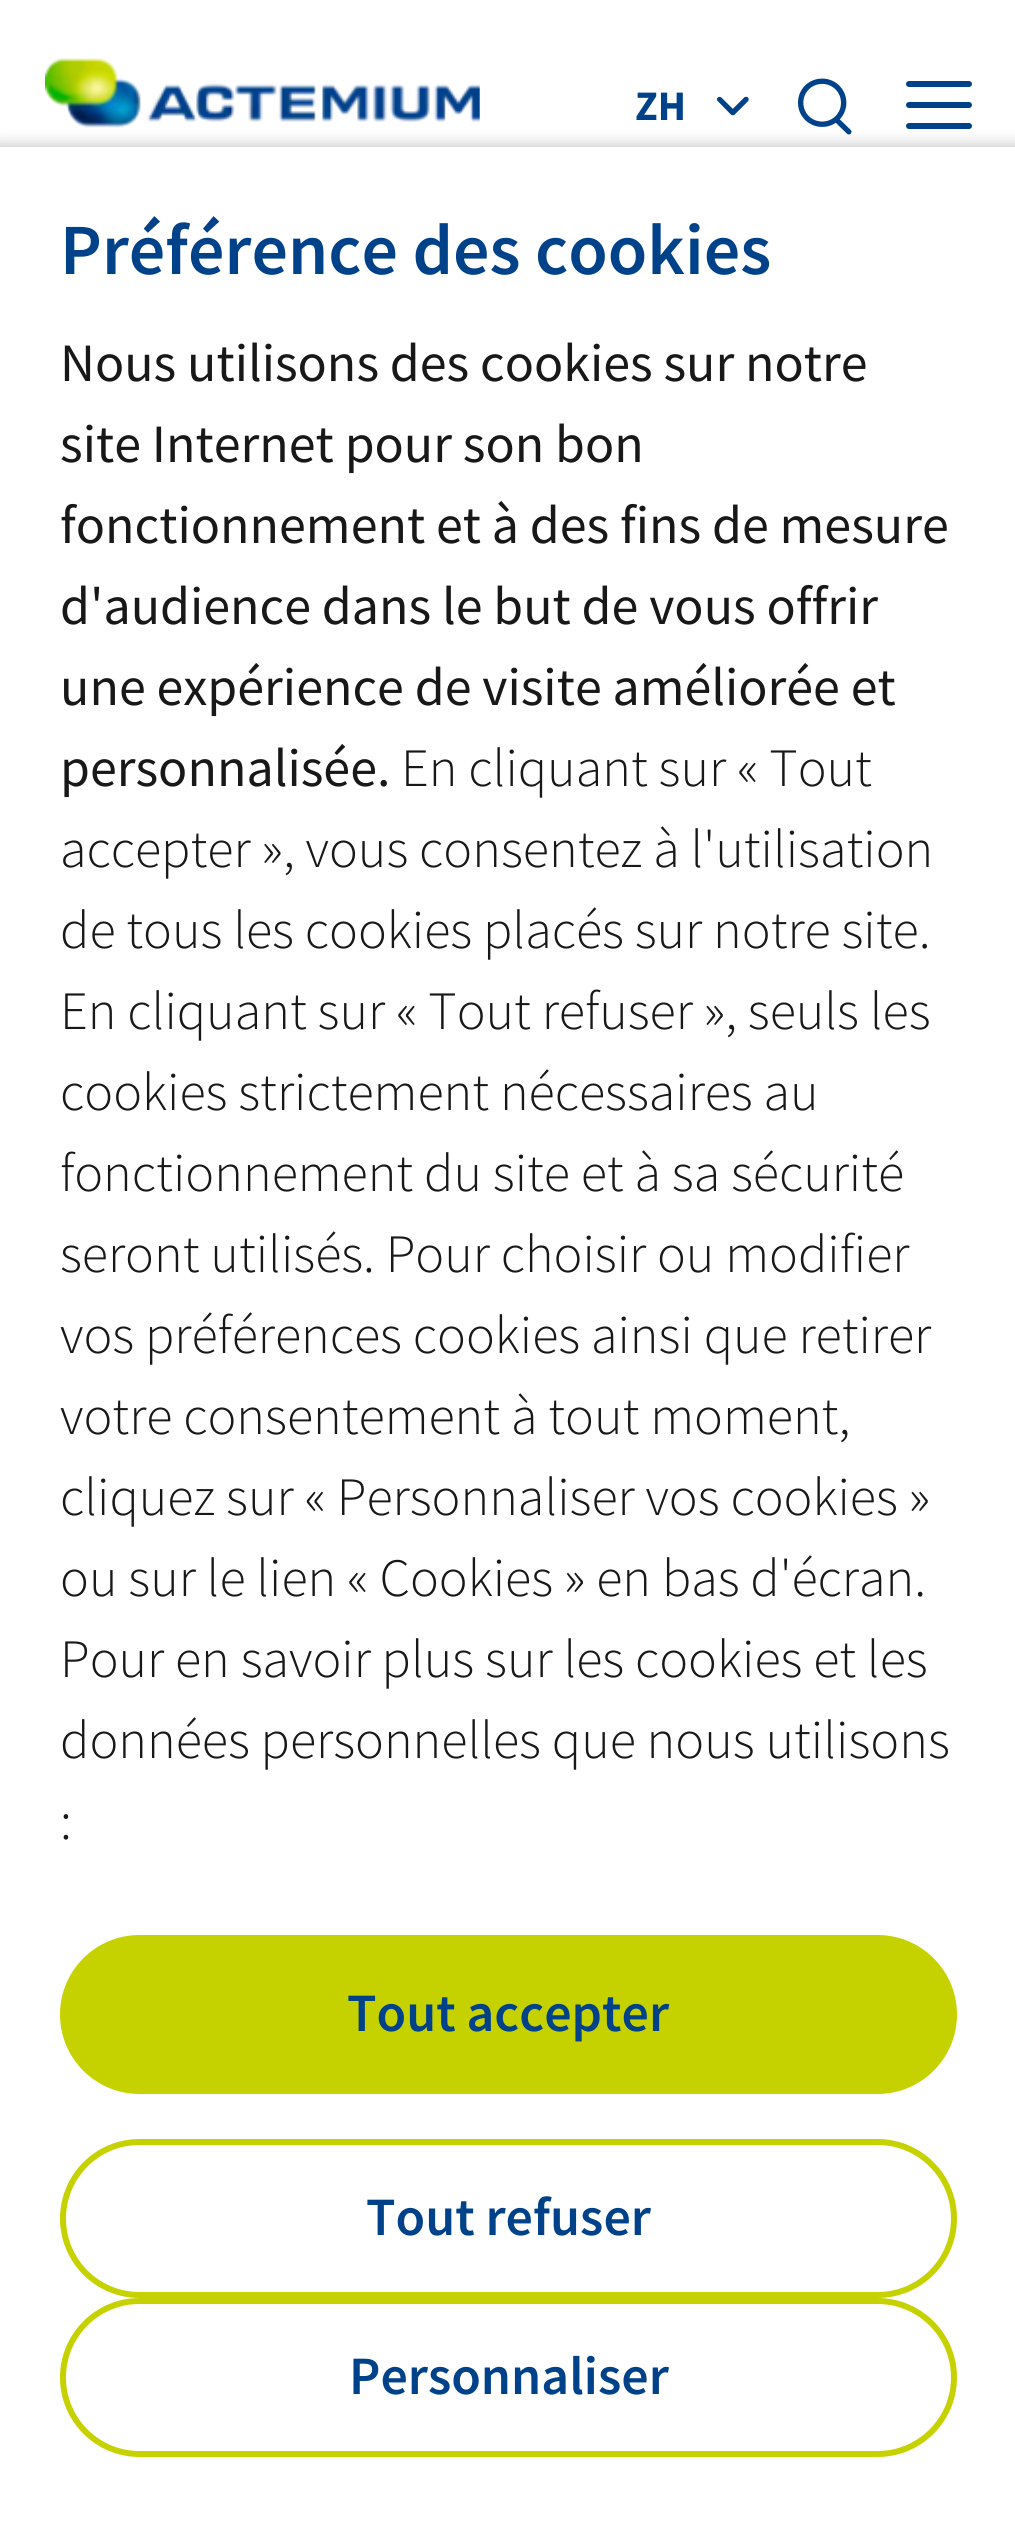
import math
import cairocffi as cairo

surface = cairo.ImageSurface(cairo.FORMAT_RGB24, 1015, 2546)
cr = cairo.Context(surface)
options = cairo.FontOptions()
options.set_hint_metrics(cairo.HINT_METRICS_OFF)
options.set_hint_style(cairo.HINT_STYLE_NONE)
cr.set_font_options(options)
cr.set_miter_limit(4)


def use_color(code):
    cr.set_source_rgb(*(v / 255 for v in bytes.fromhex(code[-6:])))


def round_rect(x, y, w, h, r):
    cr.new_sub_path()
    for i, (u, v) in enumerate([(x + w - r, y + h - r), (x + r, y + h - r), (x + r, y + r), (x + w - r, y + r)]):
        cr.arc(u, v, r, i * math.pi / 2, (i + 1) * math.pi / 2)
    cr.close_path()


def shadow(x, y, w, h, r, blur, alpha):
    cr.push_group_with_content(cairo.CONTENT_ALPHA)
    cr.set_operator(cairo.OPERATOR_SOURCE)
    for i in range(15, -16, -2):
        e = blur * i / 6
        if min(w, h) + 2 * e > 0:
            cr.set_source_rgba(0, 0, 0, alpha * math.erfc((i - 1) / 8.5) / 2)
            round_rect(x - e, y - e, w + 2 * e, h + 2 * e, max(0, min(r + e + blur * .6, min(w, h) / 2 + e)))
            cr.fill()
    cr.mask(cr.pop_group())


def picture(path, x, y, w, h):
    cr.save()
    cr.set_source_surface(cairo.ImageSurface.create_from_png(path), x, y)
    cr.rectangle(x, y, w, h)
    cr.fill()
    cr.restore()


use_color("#ffffff")
cr.paint()
picture("img1.png", 45, 58, 435, 70)
cr.select_font_face("Source Sans Pro", cairo.FONT_SLANT_NORMAL, cairo.FONT_WEIGHT_BOLD)
cr.set_font_size(42)
use_color("#004289")
cr.move_to(635, 120)
cr.show_text("ZH")
picture("img2.png", 717, 96, 32, 20)
picture("img3.png", 798, 78, 54, 57)
round_rect(906, 102, 66, 6, 3)
cr.fill()
round_rect(906, 81, 66, 6, 3)
cr.fill()
round_rect(906, 123, 66, 6, 3)
cr.fill()
use_color("#000000")
shadow(-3, 144, 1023, 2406, 0, 7.5, 0.2)
use_color("#ffffff")
cr.rectangle(0, 147, 1015, 2399)
cr.fill()
cr.select_font_face("Source Sans Pro SemiBold")
cr.set_font_size(72)
use_color("#004289")
cr.move_to(60, 274)
cr.show_text("Préférence des cookies")
cr.select_font_face("Source Sans Pro")
cr.set_font_size(54)
use_color("#181818")
cr.move_to(60, 381)
cr.show_text("Nous utilisons des cookies sur notre")
cr.move_to(60, 462)
cr.show_text("site Internet pour son bon")
cr.move_to(60, 543)
cr.show_text("fonctionnement et à des fins de mesure")
cr.move_to(60, 624)
cr.show_text("d'audience dans le but de vous offrir")
cr.move_to(60, 705)
cr.show_text("une expérience de visite améliorée et")
cr.move_to(60, 786)
cr.show_text("personnalisée.")
cr.select_font_face("Source Sans Pro Light")
cr.move_to(401, 786)
cr.show_text("En cliquant sur « Tout")
cr.move_to(60, 867)
cr.show_text("accepter », vous consentez à l'utilisation")
cr.move_to(60, 948)
cr.show_text("de tous les cookies placés sur notre site.")
cr.move_to(60, 1029)
cr.show_text("En cliquant sur « Tout refuser », seuls les")
cr.move_to(60, 1110)
cr.show_text("cookies strictement nécessaires au")
cr.move_to(60, 1191)
cr.show_text("fonctionnement du site et à sa sécurité")
cr.move_to(60, 1272)
cr.show_text("seront utilisés. Pour choisir ou modifier")
cr.move_to(60, 1353)
cr.show_text("vos préférences cookies ainsi que retirer")
cr.move_to(60, 1434)
cr.show_text("votre consentement à tout moment,")
cr.move_to(60, 1515)
cr.show_text("cliquez sur « Personnaliser vos cookies »")
cr.move_to(60, 1596)
cr.show_text("ou sur le lien « Cookies » en bas d'écran.")
cr.move_to(60, 1677)
cr.show_text("Pour en savoir plus sur les cookies et les")
cr.move_to(60, 1758)
cr.show_text("données personnelles que nous utilisons")
cr.move_to(60, 1839)
cr.show_text(":")
use_color("#c6d200")
round_rect(60, 1935, 897, 159, 79.5)
cr.fill()
cr.select_font_face("Source Sans Pro SemiBold")
use_color("#004289")
cr.move_to(347, 2031)
cr.show_text("Tout accepter")
round_rect(63, 2142, 891, 153, 76.5)
use_color("#c6d200")
cr.set_line_width(6)
cr.stroke()
use_color("#004289")
cr.move_to(366, 2235)
cr.show_text("Tout refuser")
round_rect(63, 2301, 891, 153, 76.5)
use_color("#c6d200")
cr.stroke()
use_color("#004289")
cr.move_to(349, 2394)
cr.show_text("Personnaliser")
surface.write_to_png("result.png")
